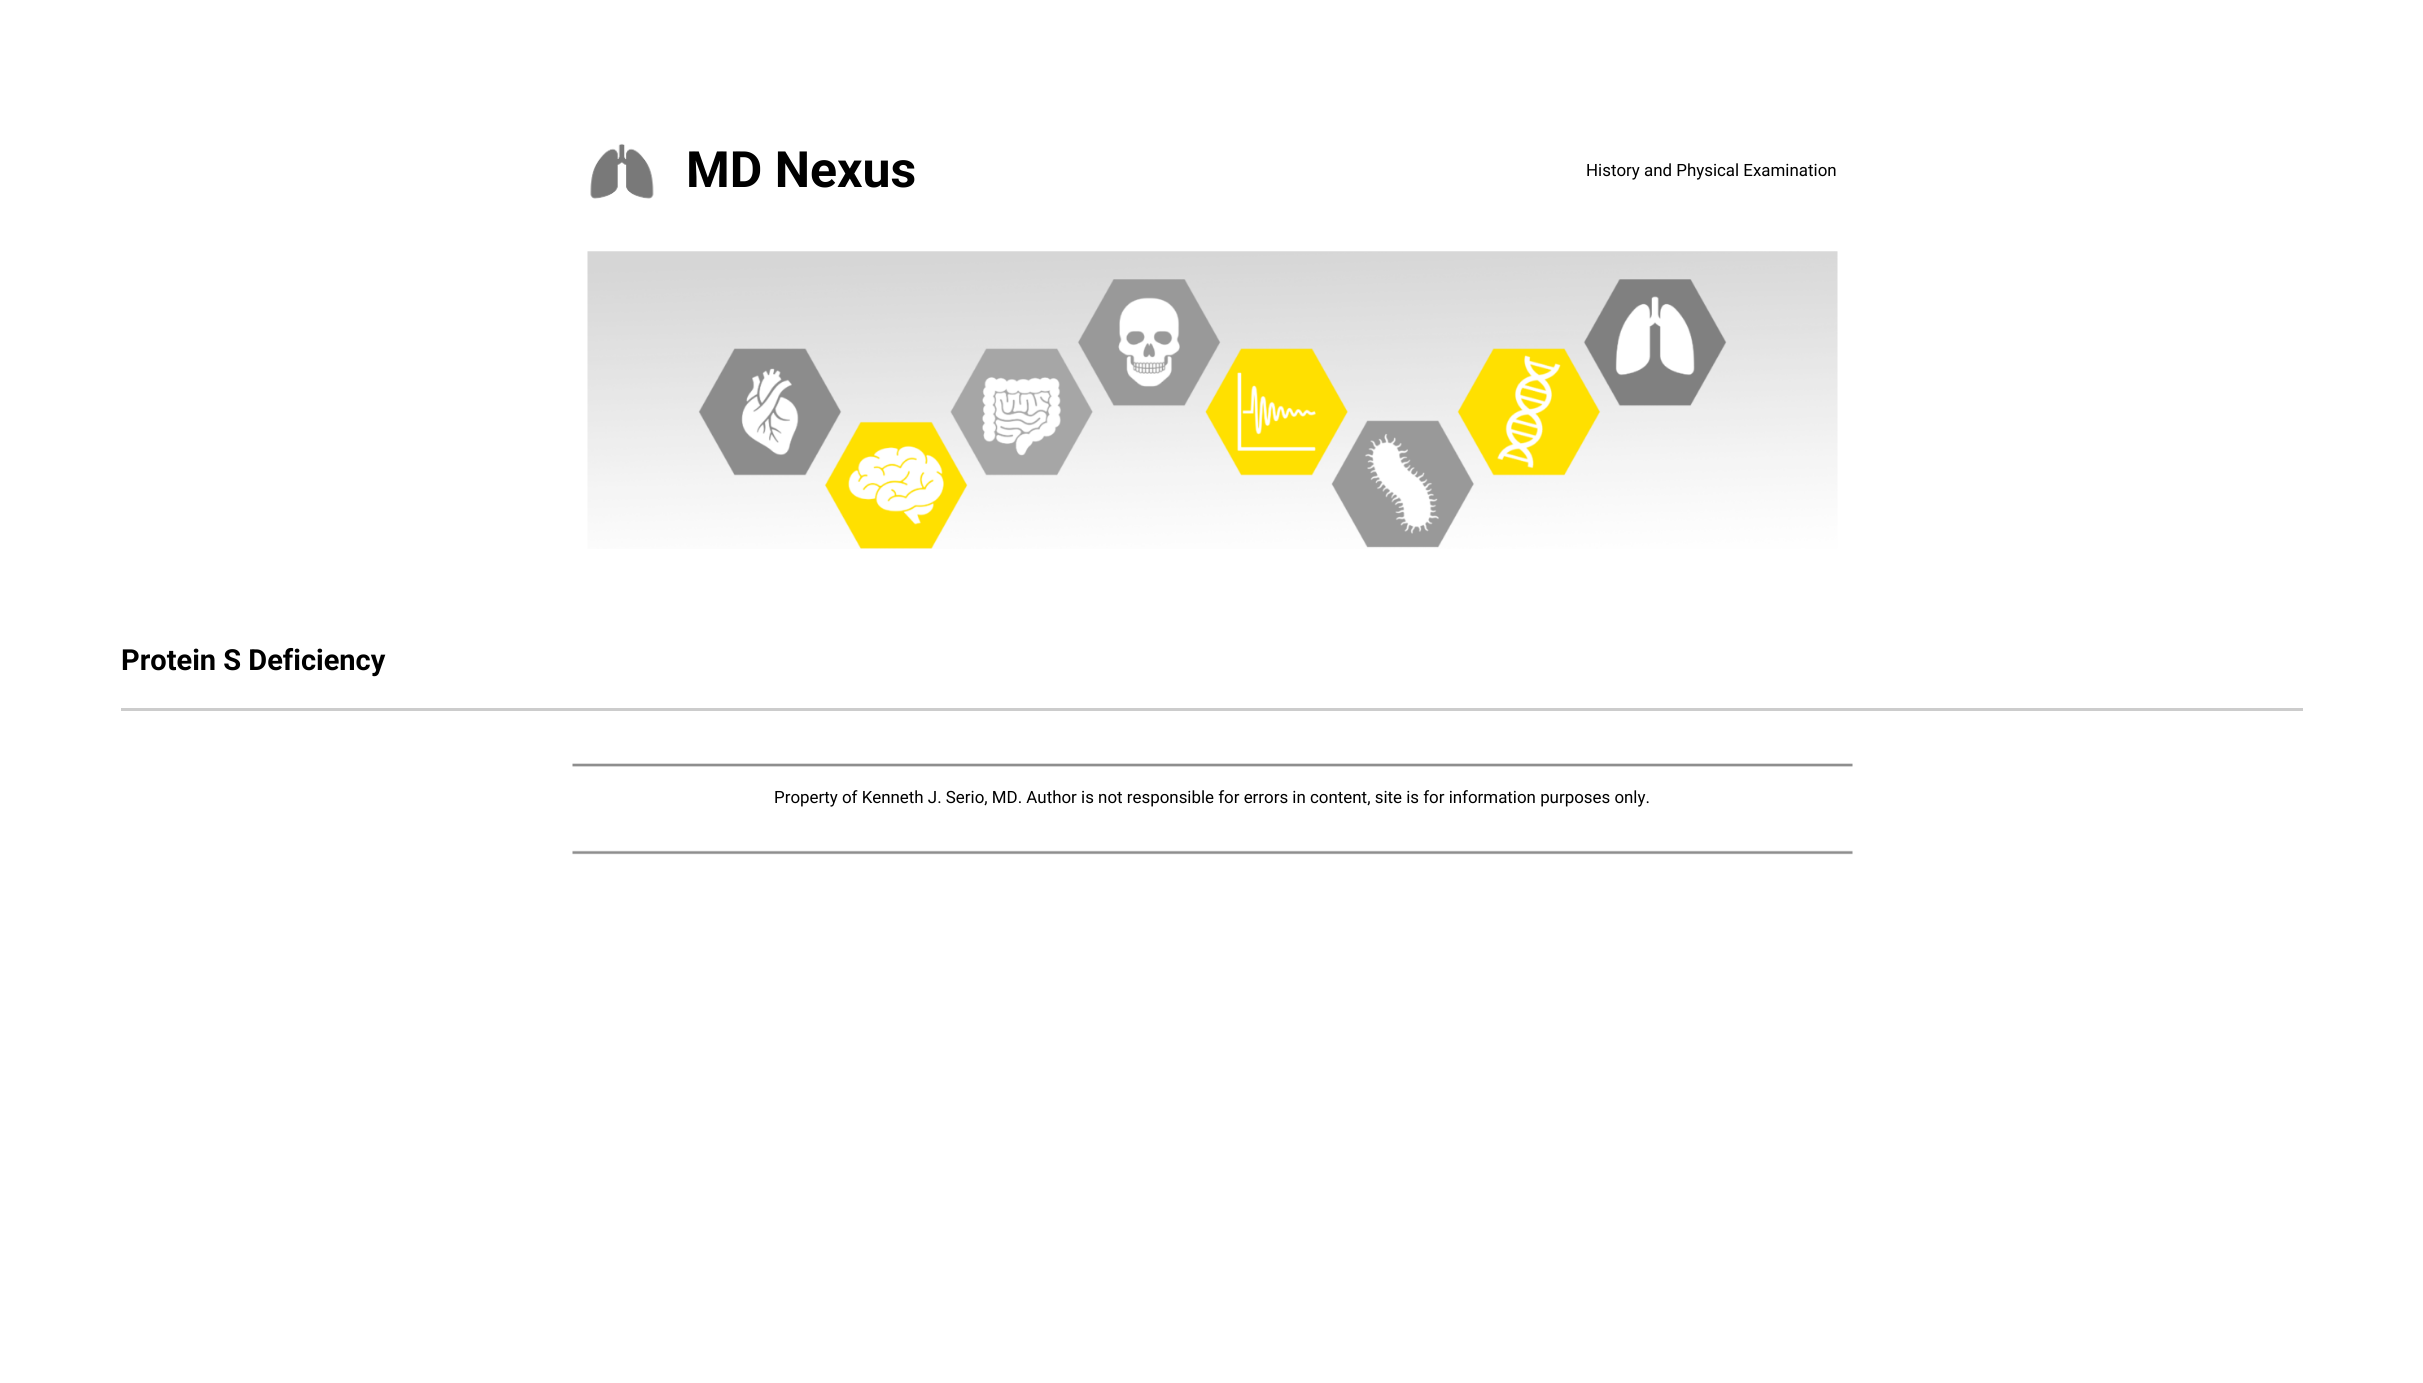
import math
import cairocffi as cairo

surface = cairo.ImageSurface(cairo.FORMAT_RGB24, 2423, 1383)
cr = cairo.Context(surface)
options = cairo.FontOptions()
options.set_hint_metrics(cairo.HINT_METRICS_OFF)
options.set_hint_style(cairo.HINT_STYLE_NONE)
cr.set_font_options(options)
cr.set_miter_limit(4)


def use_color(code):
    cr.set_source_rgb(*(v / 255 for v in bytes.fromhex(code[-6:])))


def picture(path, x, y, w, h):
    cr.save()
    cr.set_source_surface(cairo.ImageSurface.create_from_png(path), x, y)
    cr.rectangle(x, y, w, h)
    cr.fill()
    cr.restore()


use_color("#ffffff")
cr.paint()
picture("img1.png", 590, 143, 64, 56)
cr.select_font_face("Roboto", cairo.FONT_SLANT_NORMAL, cairo.FONT_WEIGHT_BOLD)
cr.set_font_size(50)
use_color("#000000")
cr.move_to(686, 187)
cr.show_text("MD Nexus")
cr.select_font_face("Roboto")
cr.set_font_size(16.9)
cr.move_to(1586, 176)
cr.show_text("History and Physical Examination")
picture("img2.png", 587, 251, 1251, 298)
cr.select_font_face("Roboto", cairo.FONT_SLANT_NORMAL, cairo.FONT_WEIGHT_BOLD)
cr.set_font_size(29)
cr.move_to(121, 670)
cr.show_text("Protein S Deficiency")
use_color("#cccccc")
cr.rectangle(121, 708, 2182, 3)
cr.fill()
picture("img3.png", 572, 763, 1281, 4)
cr.select_font_face("Roboto")
cr.set_font_size(16.9)
use_color("#000000")
cr.move_to(774, 803)
cr.show_text("Property of Kenneth J. Serio, MD. Author is not responsible for errors in content, site is for information purposes only.")
picture("img4.png", 572, 850, 1281, 5)
surface.write_to_png("result.png")
